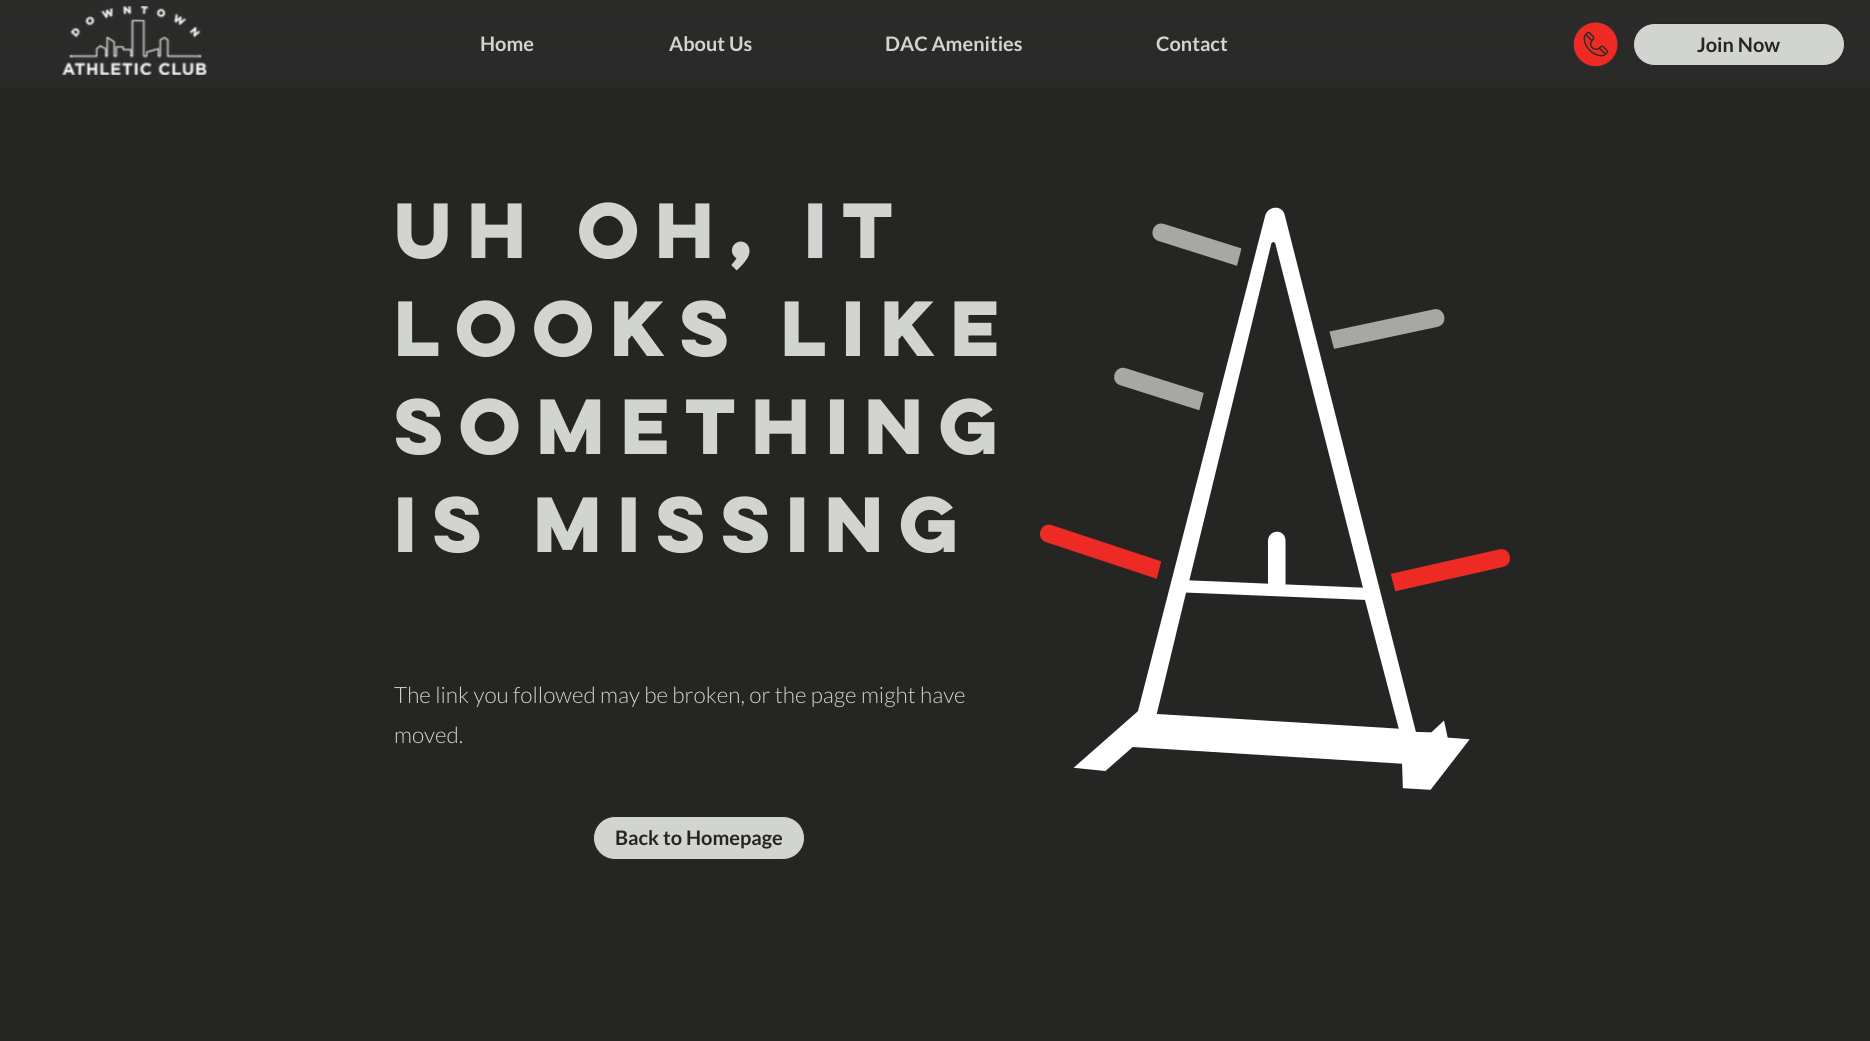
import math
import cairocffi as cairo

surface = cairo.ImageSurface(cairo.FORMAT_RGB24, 1870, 1041)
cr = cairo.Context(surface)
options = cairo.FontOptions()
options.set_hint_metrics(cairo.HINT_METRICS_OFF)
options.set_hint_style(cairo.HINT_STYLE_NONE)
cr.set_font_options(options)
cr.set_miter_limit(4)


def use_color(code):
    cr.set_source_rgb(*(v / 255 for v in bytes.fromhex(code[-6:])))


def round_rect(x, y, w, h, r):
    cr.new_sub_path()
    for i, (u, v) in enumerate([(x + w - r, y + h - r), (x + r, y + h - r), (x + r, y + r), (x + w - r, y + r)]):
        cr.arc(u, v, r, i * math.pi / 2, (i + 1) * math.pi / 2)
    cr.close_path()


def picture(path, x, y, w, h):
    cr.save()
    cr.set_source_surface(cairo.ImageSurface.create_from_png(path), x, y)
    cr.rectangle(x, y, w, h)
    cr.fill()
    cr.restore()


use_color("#252624")
cr.paint()
picture("img1.png", 0, 0, 1870, 88)
picture("img2.png", 62, 6, 145, 69)
cr.select_font_face("Lato", cairo.FONT_SLANT_NORMAL, cairo.FONT_WEIGHT_BOLD)
cr.set_font_size(20)
use_color("#d2d4d1")
cr.move_to(480, 51)
cr.show_text("Home")
cr.move_to(669, 51)
cr.show_text("About Us")
cr.move_to(885, 51)
cr.show_text("DAC Amenities")
cr.move_to(1156, 51)
cr.show_text("Contact")
picture("img3.png", 1573, 22, 45, 45)
round_rect(1633.5, 23.5, 211, 42, 21)
cr.fill_preserve()
use_color("#252624")
cr.set_line_width(1)
cr.stroke()
cr.move_to(1697, 52)
cr.show_text("Join Now")
cr.select_font_face("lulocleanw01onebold", cairo.FONT_SLANT_NORMAL, cairo.FONT_WEIGHT_BOLD)
cr.set_font_size(70)
use_color("#d2d4d1")
cr.move_to(394, 258)
cr.show_text("uh oh, it")
cr.move_to(394, 356)
cr.show_text("Looks like")
cr.move_to(394, 454)
cr.show_text("something")
cr.move_to(394, 552)
cr.show_text("is missing")
picture("img4.png", 1040, 207, 470, 583)
cr.select_font_face("Lato Light")
cr.set_font_size(22.5)
cr.move_to(394, 703)
cr.show_text("The link you followed may be broken, or the page might have")
cr.move_to(394, 743)
cr.show_text("moved.")
round_rect(593.5, 816.5, 211, 43, 21.5)
cr.fill_preserve()
use_color("#252624")
cr.stroke()
cr.select_font_face("Lato", cairo.FONT_SLANT_NORMAL, cairo.FONT_WEIGHT_BOLD)
cr.set_font_size(20)
cr.move_to(615, 845)
cr.show_text("Back to Homepage")
surface.write_to_png("result.png")
